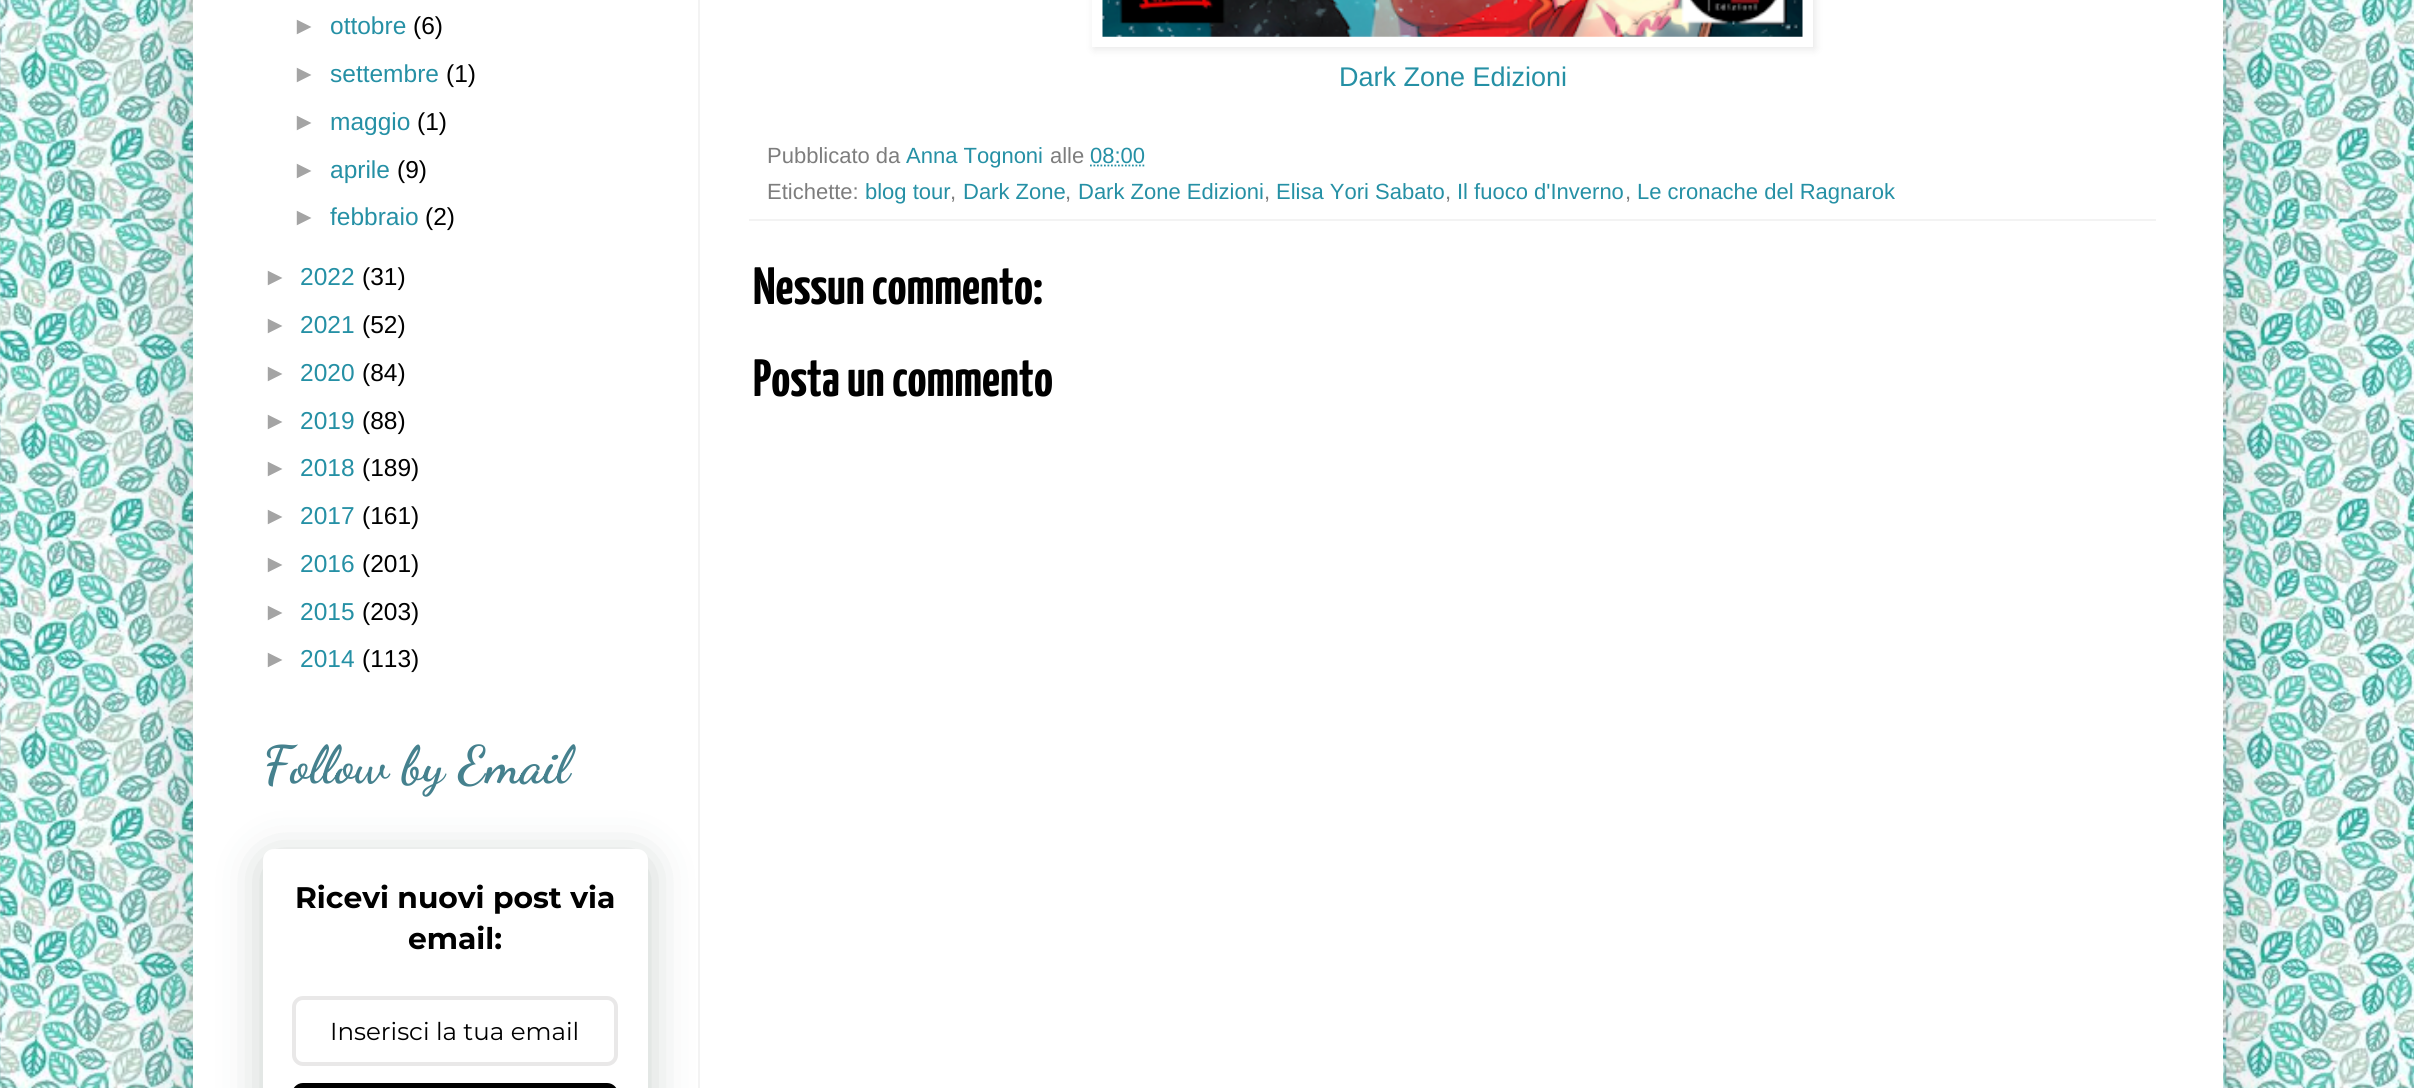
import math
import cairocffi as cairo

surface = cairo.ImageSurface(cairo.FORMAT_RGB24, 2414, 1088)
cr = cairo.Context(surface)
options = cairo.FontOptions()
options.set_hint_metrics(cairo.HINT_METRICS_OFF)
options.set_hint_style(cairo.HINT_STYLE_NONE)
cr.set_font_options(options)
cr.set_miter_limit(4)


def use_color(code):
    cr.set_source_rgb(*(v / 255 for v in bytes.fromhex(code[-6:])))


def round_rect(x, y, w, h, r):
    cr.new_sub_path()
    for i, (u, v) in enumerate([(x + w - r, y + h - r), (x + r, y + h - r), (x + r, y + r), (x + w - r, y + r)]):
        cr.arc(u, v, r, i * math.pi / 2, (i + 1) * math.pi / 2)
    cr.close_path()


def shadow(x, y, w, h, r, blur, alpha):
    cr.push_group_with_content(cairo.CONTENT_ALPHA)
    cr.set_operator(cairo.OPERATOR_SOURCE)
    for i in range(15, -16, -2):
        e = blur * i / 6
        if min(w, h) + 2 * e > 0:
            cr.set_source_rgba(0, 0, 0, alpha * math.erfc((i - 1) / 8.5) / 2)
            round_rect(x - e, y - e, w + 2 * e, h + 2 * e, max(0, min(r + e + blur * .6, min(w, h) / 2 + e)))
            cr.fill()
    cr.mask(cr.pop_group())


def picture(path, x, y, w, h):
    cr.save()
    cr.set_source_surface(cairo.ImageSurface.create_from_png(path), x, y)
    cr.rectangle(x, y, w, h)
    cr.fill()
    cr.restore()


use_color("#ffffff")
cr.paint()
picture("img1.png", 0, 0, 2414, 1088)
use_color("#000000")
shadow(193, -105, 2030, 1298, 0, 35, 0.15)
use_color("#ffffff")
cr.rectangle(193, 0, 2030, 1088)
cr.fill()
use_color("#f3f3f3")
cr.rectangle(698, 0, 2, 1088)
cr.fill()
cr.select_font_face("Liberation Sans")
cr.set_font_size(24.5)
use_color("#a4a4a4")
cr.move_to(292, 34)
cr.show_text("►")
use_color("#2590a5")
cr.move_to(330, 34)
cr.show_text("ottobre")
use_color("#000000")
cr.move_to(413, 34)
cr.show_text("(6)")
use_color("#a4a4a4")
cr.move_to(292, 82)
cr.show_text("►")
use_color("#2590a5")
cr.move_to(330, 82)
cr.show_text("settembre")
use_color("#000000")
cr.move_to(446, 82)
cr.show_text("(1)")
use_color("#a4a4a4")
cr.move_to(292, 130)
cr.show_text("►")
use_color("#2590a5")
cr.move_to(330, 130)
cr.show_text("maggio")
use_color("#000000")
cr.move_to(417, 130)
cr.show_text("(1)")
use_color("#a4a4a4")
cr.move_to(292, 178)
cr.show_text("►")
use_color("#2590a5")
cr.move_to(330, 178)
cr.show_text("aprile")
use_color("#000000")
cr.move_to(397, 178)
cr.show_text("(9)")
use_color("#a4a4a4")
cr.move_to(292, 225)
cr.show_text("►")
use_color("#2590a5")
cr.move_to(330, 225)
cr.show_text("febbraio")
use_color("#000000")
cr.move_to(425, 225)
cr.show_text("(2)")
use_color("#a4a4a4")
cr.move_to(263, 285)
cr.show_text("►")
use_color("#2590a5")
cr.move_to(300, 285)
cr.show_text("2022")
use_color("#000000")
cr.move_to(362, 285)
cr.show_text("(31)")
use_color("#a4a4a4")
cr.move_to(263, 333)
cr.show_text("►")
use_color("#2590a5")
cr.move_to(300, 333)
cr.show_text("2021")
use_color("#000000")
cr.move_to(362, 333)
cr.show_text("(52)")
use_color("#a4a4a4")
cr.move_to(263, 381)
cr.show_text("►")
use_color("#2590a5")
cr.move_to(300, 381)
cr.show_text("2020")
use_color("#000000")
cr.move_to(362, 381)
cr.show_text("(84)")
use_color("#a4a4a4")
cr.move_to(263, 429)
cr.show_text("►")
use_color("#2590a5")
cr.move_to(300, 429)
cr.show_text("2019")
use_color("#000000")
cr.move_to(362, 429)
cr.show_text("(88)")
use_color("#a4a4a4")
cr.move_to(263, 476)
cr.show_text("►")
use_color("#2590a5")
cr.move_to(300, 476)
cr.show_text("2018")
use_color("#000000")
cr.move_to(362, 476)
cr.show_text("(189)")
use_color("#a4a4a4")
cr.move_to(263, 524)
cr.show_text("►")
use_color("#2590a5")
cr.move_to(300, 524)
cr.show_text("2017")
use_color("#000000")
cr.move_to(362, 524)
cr.show_text("(161)")
use_color("#a4a4a4")
cr.move_to(263, 572)
cr.show_text("►")
use_color("#2590a5")
cr.move_to(300, 572)
cr.show_text("2016")
use_color("#000000")
cr.move_to(362, 572)
cr.show_text("(201)")
use_color("#a4a4a4")
cr.move_to(263, 620)
cr.show_text("►")
use_color("#2590a5")
cr.move_to(300, 620)
cr.show_text("2015")
use_color("#000000")
cr.move_to(362, 620)
cr.show_text("(203)")
use_color("#a4a4a4")
cr.move_to(263, 667)
cr.show_text("►")
use_color("#2590a5")
cr.move_to(300, 667)
cr.show_text("2014")
use_color("#000000")
cr.move_to(362, 667)
cr.show_text("(113)")
cr.select_font_face("Dancing Script", cairo.FONT_SLANT_NORMAL, cairo.FONT_WEIGHT_BOLD)
cr.set_font_size(52.5)
use_color("#45818e")
cr.move_to(263, 782)
cr.show_text("Follow by Email")
use_color("#223c2f")
shadow(263, 858, 385, 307, 11, 22, 0.25)
use_color("#ffffff")
round_rect(263, 849, 385, 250, 11)
cr.fill()
cr.select_font_face("Montserrat Thin")
cr.set_font_size(29.75)
use_color("#000000")
cr.move_to(295, 908)
cr.show_text("Ricevi nuovi post via")
cr.move_to(408, 949)
cr.show_text("email:")
round_rect(294, 998, 322, 66, 9)
use_color("#e9e8e8")
cr.set_line_width(4)
cr.stroke()
cr.select_font_face("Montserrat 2 Thin")
cr.set_font_size(24.5)
use_color("#000000")
cr.move_to(330, 1040)
cr.show_text("Inserisci la tua email")
round_rect(292, 1083, 326, 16, 11)
cr.fill()
cr.save()
cr.set_fill_rule(cairo.FILL_RULE_EVEN_ODD)
cr.new_path()
cr.move_to(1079, 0)
cr.line_to(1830, 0)
cr.line_to(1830, 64)
cr.line_to(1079, 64)
cr.close_path()
cr.move_to(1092, -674)
cr.line_to(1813, -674)
cr.line_to(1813, 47)
cr.line_to(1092, 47)
cr.close_path()
cr.clip()
use_color("#000000")
shadow(1094, -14, 721, 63, 0, 4.5, 0.1)
cr.restore()
picture("img2.png", 1102, 0, 701, 37)
cr.select_font_face("Liberation Sans")
cr.set_font_size(27)
use_color("#2590a5")
cr.move_to(1339, 86)
cr.show_text("Dark Zone Edizioni")
use_color("#f3f3f3")
cr.rectangle(749, 219, 1407, 2)
cr.fill()
cr.set_font_size(22)
use_color("#7d7d7d")
cr.move_to(767, 163)
cr.show_text("Pubblicato da")
use_color("#2590a5")
cr.move_to(906, 163)
cr.show_text("Anna Tognoni")
use_color("#7d7d7d")
cr.move_to(1050, 163)
cr.show_text("alle")
use_color("#2590a5")
cr.move_to(1090, 163)
cr.show_text("08:00")
cr.new_path()
cr.move_to(1090, 165.5)
cr.line_to(1145, 165.5)
cr.set_line_width(1.8)
cr.set_dash([1.75, 1.75])
cr.stroke()
use_color("#7d7d7d")
cr.move_to(767, 199)
cr.show_text("Etichette:")
use_color("#2590a5")
cr.move_to(865, 199)
cr.show_text("blog tour")
use_color("#7d7d7d")
cr.move_to(950, 199)
cr.show_text(",")
use_color("#2590a5")
cr.move_to(963, 199)
cr.show_text("Dark Zone")
use_color("#7d7d7d")
cr.move_to(1065, 199)
cr.show_text(",")
use_color("#2590a5")
cr.move_to(1078, 199)
cr.show_text("Dark Zone Edizioni")
use_color("#7d7d7d")
cr.move_to(1264, 199)
cr.show_text(",")
use_color("#2590a5")
cr.move_to(1276, 199)
cr.show_text("Elisa Yori Sabato")
use_color("#7d7d7d")
cr.move_to(1445, 199)
cr.show_text(",")
use_color("#2590a5")
cr.move_to(1457, 199)
cr.show_text("Il fuoco d'Inverno")
use_color("#7d7d7d")
cr.move_to(1625, 199)
cr.show_text(",")
use_color("#2590a5")
cr.move_to(1637, 199)
cr.show_text("Le cronache del Ragnarok")
cr.select_font_face("Yanone Kaffeesatz ExtraLight")
cr.set_font_size(52.5)
use_color("#000000")
cr.move_to(753, 304)
cr.show_text("Nessun commento:")
cr.move_to(753, 396)
cr.show_text("Posta un commento")
surface.write_to_png("result.png")
